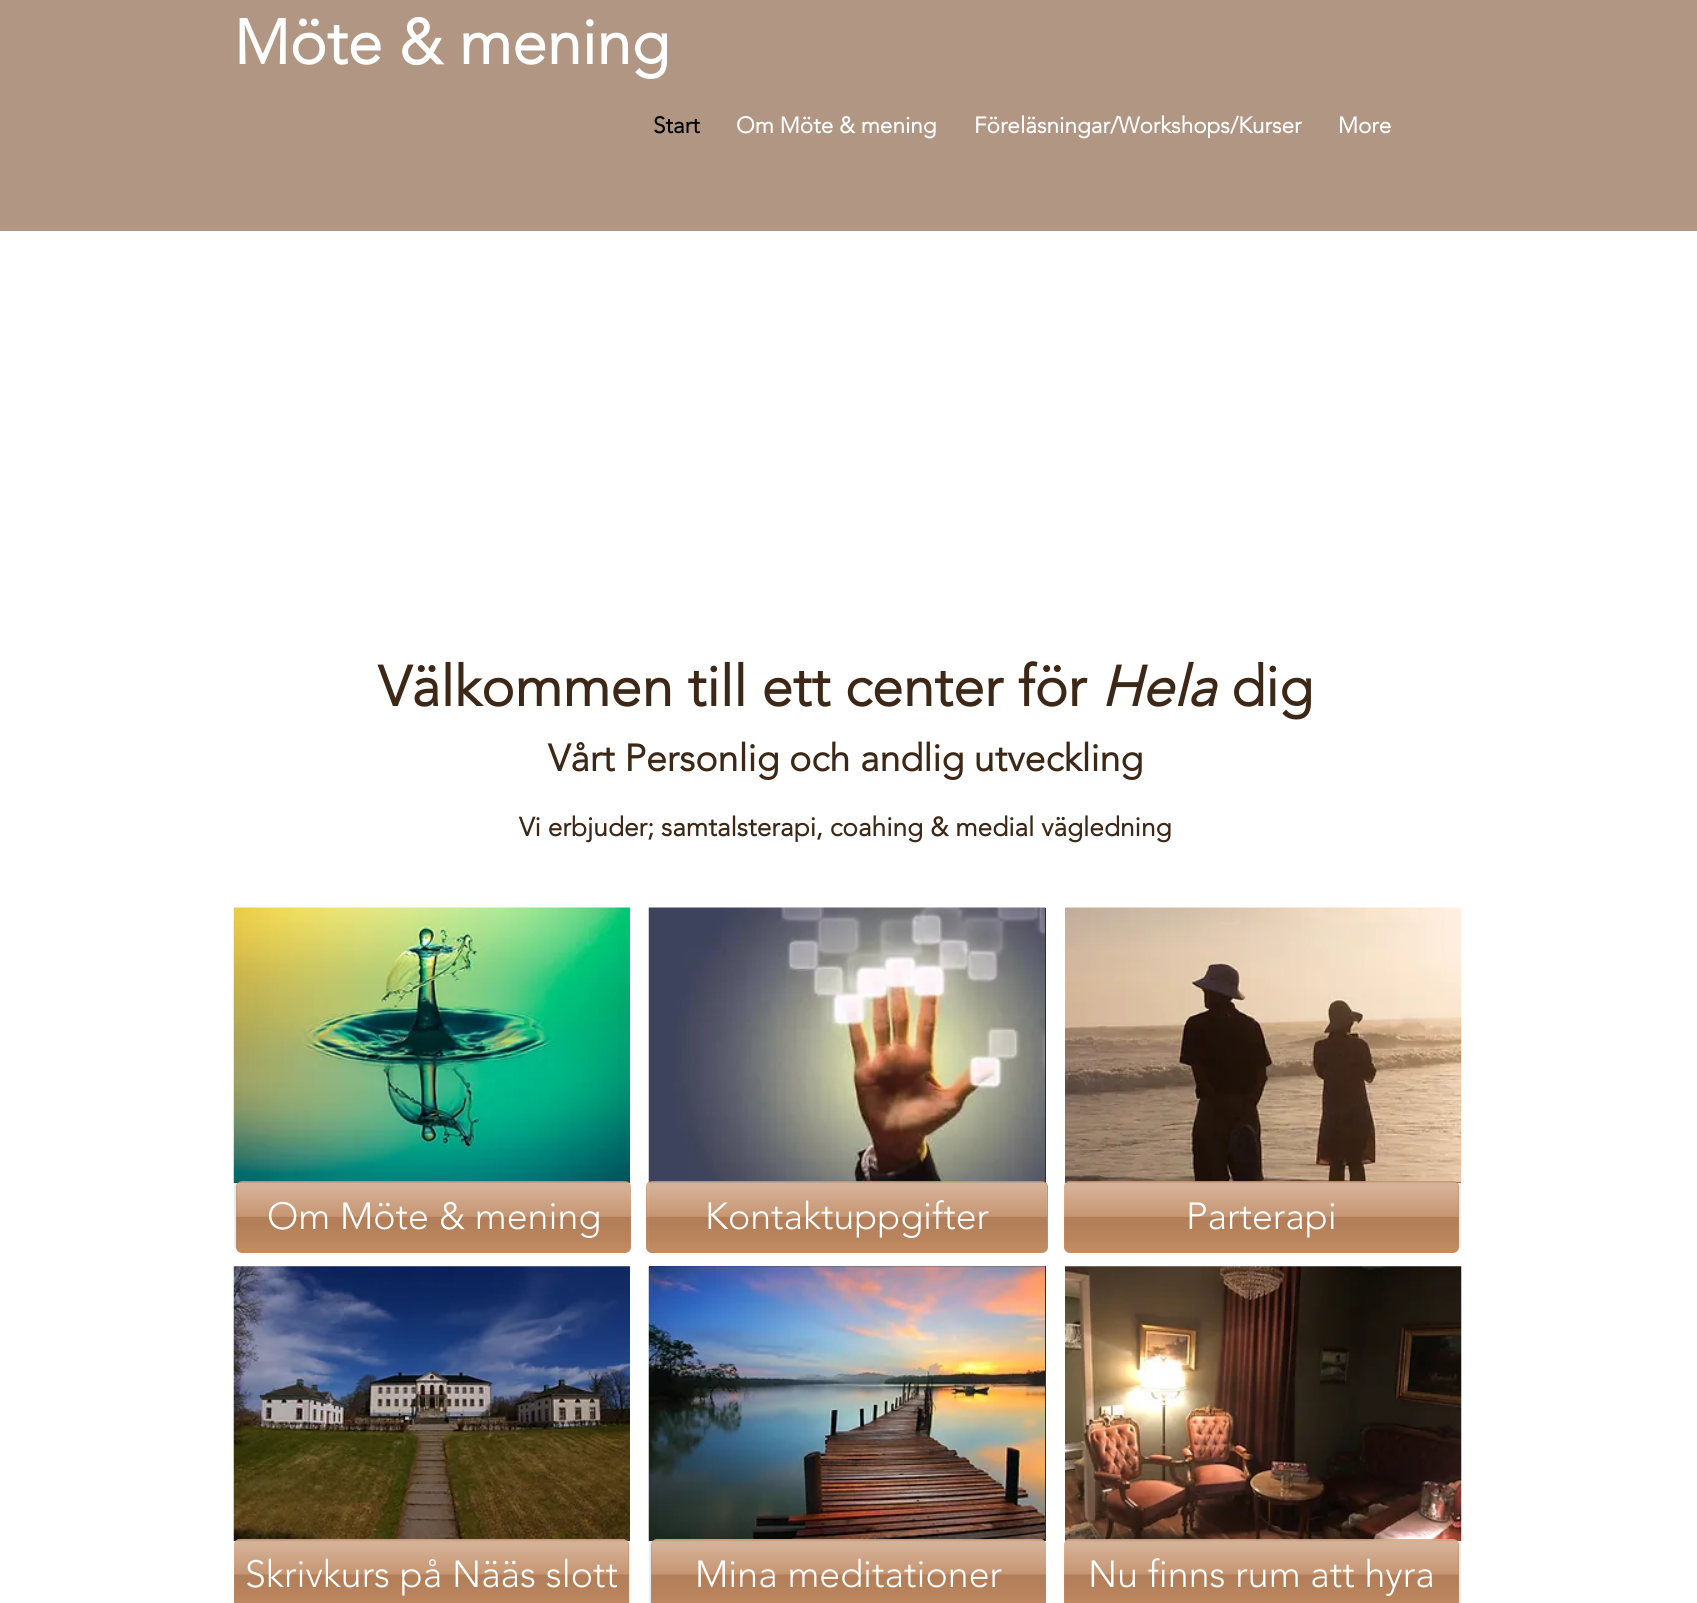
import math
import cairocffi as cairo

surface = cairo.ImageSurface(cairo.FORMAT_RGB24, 1697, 1603)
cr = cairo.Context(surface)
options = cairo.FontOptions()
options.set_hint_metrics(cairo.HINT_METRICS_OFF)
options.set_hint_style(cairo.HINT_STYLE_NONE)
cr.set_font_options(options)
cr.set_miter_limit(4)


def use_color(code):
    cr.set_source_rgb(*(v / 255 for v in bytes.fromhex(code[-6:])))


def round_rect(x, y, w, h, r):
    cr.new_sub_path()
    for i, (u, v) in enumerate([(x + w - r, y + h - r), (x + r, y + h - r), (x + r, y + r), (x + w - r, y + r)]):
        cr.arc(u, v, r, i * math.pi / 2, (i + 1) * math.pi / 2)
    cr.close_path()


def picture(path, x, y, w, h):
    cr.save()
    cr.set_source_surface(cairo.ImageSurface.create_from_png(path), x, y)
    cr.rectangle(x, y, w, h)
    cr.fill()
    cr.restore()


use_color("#ffffff")
cr.paint()
use_color("#b09683")
cr.rectangle(0, 0, 1697, 231)
cr.fill()
cr.select_font_face("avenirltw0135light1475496", cairo.FONT_SLANT_NORMAL, cairo.FONT_WEIGHT_BOLD)
cr.set_font_size(62.5)
use_color("#ffffff")
cr.move_to(234, 64)
cr.show_text("Möte & mening")
cr.set_font_size(22.5)
use_color("#000000")
cr.move_to(653, 133)
cr.show_text("Start")
use_color("#ffffff")
cr.move_to(736, 133)
cr.show_text("Om Möte & mening")
cr.move_to(974, 133)
cr.show_text("Föreläsningar/Workshops/Kurser")
cr.move_to(1338, 133)
cr.show_text("More")
cr.set_font_size(56.25)
use_color("#3d2817")
cr.move_to(378, 706)
cr.show_text("Välkommen till ett center för")
cr.select_font_face("avenirltw0135light1475496", cairo.FONT_SLANT_ITALIC, cairo.FONT_WEIGHT_BOLD)
cr.move_to(1101, 706)
cr.show_text("Hela")
cr.select_font_face("avenirltw0135light1475496", cairo.FONT_SLANT_NORMAL, cairo.FONT_WEIGHT_BOLD)
cr.move_to(1231, 706)
cr.show_text("dig")
cr.set_font_size(37.5)
cr.move_to(548, 771)
cr.show_text("Vårt Personlig och andlig utveckling")
cr.set_font_size(26.25)
cr.move_to(519, 836)
cr.show_text("Vi erbjuder; samtalsterapi, coahing & medial vägledning")
use_color("#2f2e2e")
cr.rectangle(234, 1182, 396, 1)
cr.fill()
picture("img1.png", 233, 907, 397, 276)
use_color("#e3edf9")
cr.rectangle(234, 1183, 396, 65)
cr.fill()
use_color("#2f2e2e")
cr.rectangle(649, 908, 397, 275)
cr.fill()
picture("img2.png", 648, 907, 397, 276)
use_color("#e3edf9")
cr.rectangle(649, 1183, 397, 65)
cr.fill()
use_color("#2f2e2e")
cr.rectangle(1065, 1182, 396, 1)
cr.fill()
picture("img3.png", 1065, 907, 397, 276)
use_color("#e3edf9")
cr.rectangle(1065, 1183, 396, 65)
cr.fill()
picture("img4.png", 233, 1266, 397, 276)
cr.rectangle(234, 1541, 396, 62)
cr.fill()
use_color("#2f2e2e")
cr.rectangle(649, 1266, 397, 275)
cr.fill()
picture("img5.png", 648, 1266, 397, 276)
use_color("#e3edf9")
cr.rectangle(649, 1541, 397, 62)
cr.fill()
picture("img6.png", 1065, 1266, 397, 276)
cr.rectangle(1065, 1541, 396, 62)
cr.fill()
cr.set_source_rgba(0.722, 0.467, 0.275, 0.85)
round_rect(236, 1181, 395, 72, 6)
cr.fill()
picture("img7.png", 236, 1181, 395, 62)
cr.select_font_face("avenirltw0135light1475496 Light")
cr.set_font_size(37.5)
use_color("#ffffff")
cr.move_to(267, 1229)
cr.show_text("Om Möte & mening")
cr.set_source_rgba(0.722, 0.467, 0.275, 0.85)
round_rect(646, 1181, 402, 72, 6)
cr.fill()
picture("img8.png", 646, 1181, 402, 62)
use_color("#ffffff")
cr.move_to(705, 1229)
cr.show_text("Kontaktuppgifter")
cr.set_source_rgba(0.722, 0.467, 0.275, 0.85)
round_rect(1064, 1181, 395, 72, 6)
cr.fill()
picture("img9.png", 1064, 1181, 395, 62)
use_color("#ffffff")
cr.move_to(1186, 1229)
cr.show_text("Parterapi")
cr.set_source_rgba(0.722, 0.467, 0.275, 0.85)
round_rect(234, 1539, 395, 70, 6)
cr.fill()
picture("img10.png", 234, 1539, 395, 61)
use_color("#ffffff")
cr.move_to(245, 1587)
cr.show_text("Skrivkurs på Nääs slott")
cr.set_source_rgba(0.722, 0.467, 0.275, 0.85)
round_rect(651, 1539, 395, 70, 6)
cr.fill()
picture("img11.png", 651, 1539, 395, 61)
use_color("#ffffff")
cr.move_to(695, 1587)
cr.show_text("Mina meditationer")
cr.set_source_rgba(0.722, 0.467, 0.275, 0.85)
round_rect(1064, 1539, 395, 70, 6)
cr.fill()
picture("img12.png", 1064, 1539, 395, 61)
use_color("#ffffff")
cr.move_to(1088, 1587)
cr.show_text("Nu finns rum att hyra")
surface.write_to_png("result.png")
